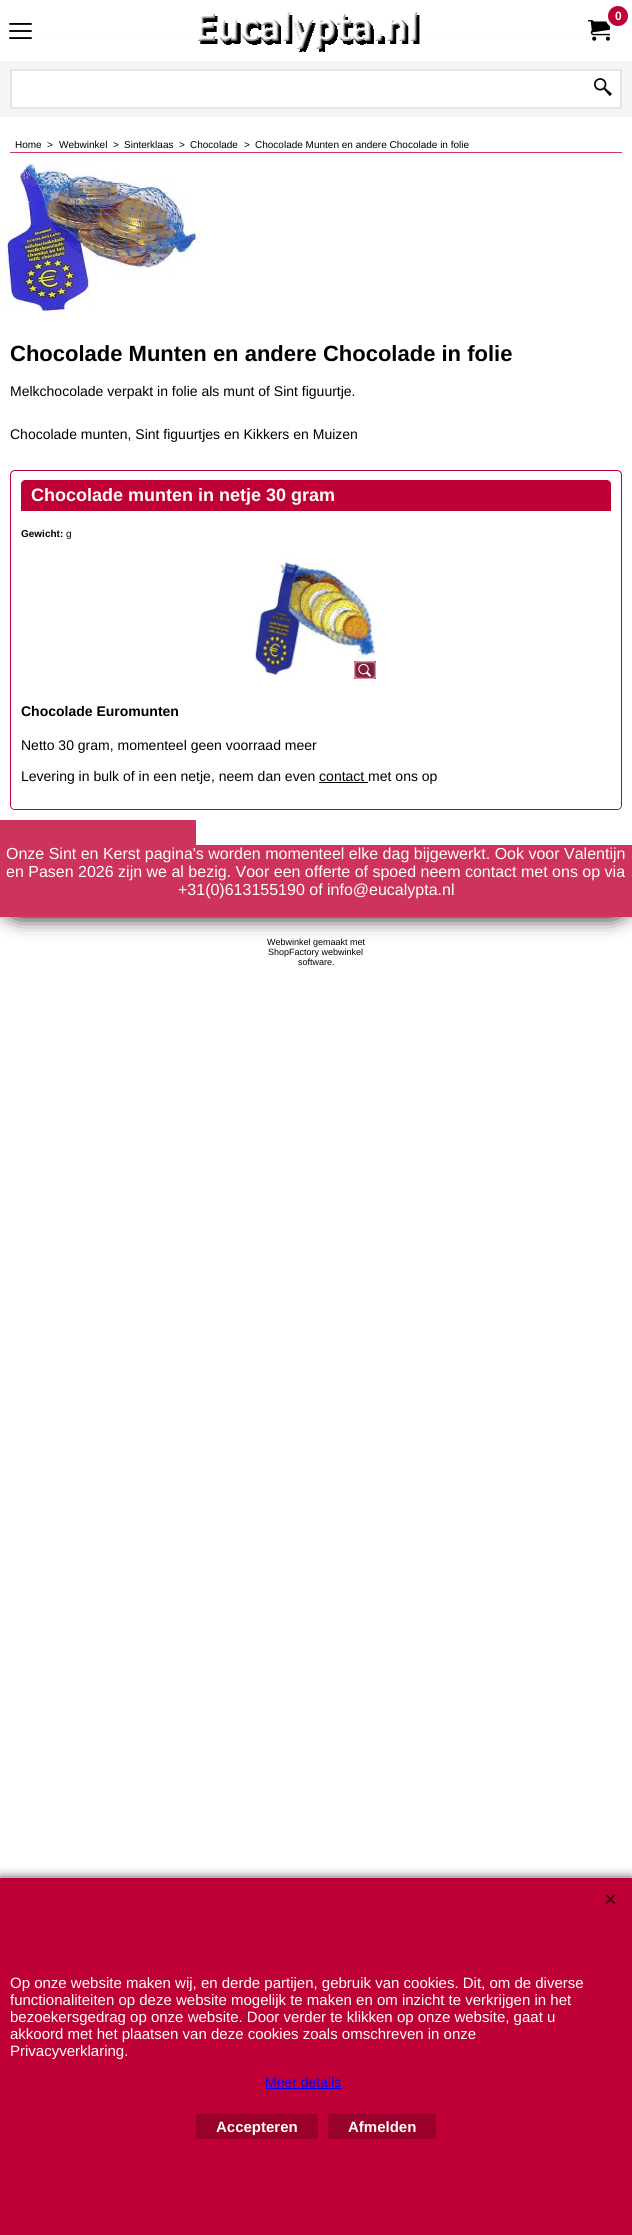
import math
import cairocffi as cairo

surface = cairo.ImageSurface(cairo.FORMAT_RGB24, 632, 2235)
cr = cairo.Context(surface)
options = cairo.FontOptions()
options.set_hint_metrics(cairo.HINT_METRICS_OFF)
options.set_hint_style(cairo.HINT_STYLE_NONE)
cr.set_font_options(options)
cr.set_miter_limit(4)


def use_color(code):
    cr.set_source_rgb(*(v / 255 for v in bytes.fromhex(code[-6:])))


def round_rect(x, y, w, h, r):
    cr.new_sub_path()
    for i, (u, v) in enumerate([(x + w - r, y + h - r), (x + r, y + h - r), (x + r, y + r), (x + w - r, y + r)]):
        cr.arc(u, v, r, i * math.pi / 2, (i + 1) * math.pi / 2)
    cr.close_path()


def shadow(x, y, w, h, r, blur, alpha):
    cr.push_group_with_content(cairo.CONTENT_ALPHA)
    cr.set_operator(cairo.OPERATOR_SOURCE)
    for i in range(15, -16, -2):
        e = blur * i / 6
        if min(w, h) + 2 * e > 0:
            cr.set_source_rgba(0, 0, 0, alpha * math.erfc((i - 1) / 8.5) / 2)
            round_rect(x - e, y - e, w + 2 * e, h + 2 * e, max(0, min(r + e + blur * .6, min(w, h) / 2 + e)))
            cr.fill()
    cr.mask(cr.pop_group())


def picture(path, x, y, w, h):
    cr.save()
    cr.set_source_surface(cairo.ImageSurface.create_from_png(path), x, y)
    cr.rectangle(x, y, w, h)
    cr.fill()
    cr.restore()


use_color("#ffffff")
cr.paint()
use_color("#000000")
shadow(0, 61, 632, 856, 20, 10, 1)
use_color("#ffffff")
cr.rectangle(0, 38, 632, 23)
cr.fill()
picture("img1.png", 9, 23, 23, 16)
picture("img2.png", 197, 12, 223, 40)
picture("img3.png", 588, 20, 22, 21)
use_color("#bf0036")
cr.arc(618, 16, 11.5, 0, 2 * math.pi)
cr.fill_preserve()
use_color("#ffffff")
cr.set_line_width(3)
cr.stroke()
cr.select_font_face("Liberation Sans", cairo.FONT_SLANT_NORMAL, cairo.FONT_WEIGHT_BOLD)
cr.set_font_size(12)
cr.move_to(615, 20)
cr.show_text("0")
use_color("#f5f5f6")
cr.rectangle(0, 61, 632, 56)
cr.fill()
use_color("#ffffff")
cr.rectangle(11, 70, 610, 38)
cr.fill_preserve()
use_color("#e6e6e6")
cr.set_line_width(2)
cr.stroke()
picture("img4.png", 594, 78, 18, 18)
use_color("#ffffff")
cr.rectangle(0, 117, 632, 703)
cr.fill()
use_color("#cd335c")
cr.rectangle(10, 152, 612, 1)
cr.fill()
cr.select_font_face("Liberation Sans")
cr.set_font_size(10)
use_color("#000000")
cr.move_to(15, 148)
cr.show_text("Home")
cr.move_to(47, 148)
cr.show_text(">")
cr.move_to(59, 148)
cr.show_text("Webwinkel")
cr.move_to(113, 148)
cr.show_text(">")
cr.move_to(124, 148)
cr.show_text("Sinterklaas")
cr.move_to(179, 148)
cr.show_text(">")
cr.move_to(190, 148)
cr.show_text("Chocolade")
cr.move_to(244, 148)
cr.show_text(">")
cr.move_to(255, 148)
cr.show_text("Chocolade Munten en andere Chocolade in folie")
picture("img5.png", 0, 163, 200, 150)
cr.select_font_face("Liberation Sans", cairo.FONT_SLANT_NORMAL, cairo.FONT_WEIGHT_BOLD)
cr.set_font_size(22)
cr.move_to(10, 361)
cr.show_text("Chocolade Munten en andere Chocolade in folie")
cr.select_font_face("Liberation Sans")
cr.set_font_size(14)
cr.move_to(10, 396)
cr.show_text("Melkchocolade verpakt in folie als munt of Sint figuurtje.")
cr.move_to(10, 439)
cr.show_text("Chocolade munten, Sint figuurtjes en Kikkers en Muizen")
round_rect(10.5, 470.5, 611, 339, 4.5)
use_color("#bf0036")
cr.set_line_width(1)
cr.stroke()
cr.new_path()
cr.move_to(25, 480)
cr.line_to(607, 480)
cr.curve_to(609, 480, 611, 482, 611, 484)
cr.line_to(611, 511)
cr.line_to(21, 511)
cr.line_to(21, 484)
cr.curve_to(21, 482, 23, 480, 25, 480)
cr.close_path()
cr.fill()
cr.select_font_face("Liberation Sans", cairo.FONT_SLANT_NORMAL, cairo.FONT_WEIGHT_BOLD)
cr.set_font_size(18)
use_color("#ffffff")
cr.move_to(31, 501)
cr.show_text("Chocolade munten in netje 30 gram")
cr.set_font_size(10)
use_color("#000000")
cr.move_to(21, 537)
cr.show_text("Gewicht:")
cr.select_font_face("Liberation Sans")
cr.move_to(66, 537)
cr.show_text("g")
use_color("#ffffff")
cr.new_path()
cr.move_to(11, 548)
cr.line_to(621, 548)
cr.line_to(621, 805)
cr.curve_to(621, 807, 619, 809, 617, 809)
cr.line_to(15, 809)
cr.curve_to(13, 809, 11, 807, 11, 805)
cr.close_path()
cr.fill()
picture("img6.png", 251, 558, 125, 120)
use_color("#cd335c")
cr.rectangle(354, 661, 22, 18)
cr.fill()
picture("img7.png", 354, 661, 22, 18)
cr.select_font_face("Liberation Sans", cairo.FONT_SLANT_NORMAL, cairo.FONT_WEIGHT_BOLD)
cr.set_font_size(14)
use_color("#000000")
cr.move_to(21, 716)
cr.show_text("Chocolade Euromunten")
cr.select_font_face("Liberation Sans")
cr.move_to(21, 750)
cr.show_text("Netto 30 gram, momenteel geen voorraad meer")
cr.move_to(21, 781)
cr.show_text("Levering in bulk of in een netje, neem dan even contact met ons op")
cr.rectangle(319, 782, 49, 1)
cr.fill()
use_color("#cd335c")
cr.rectangle(0, 820, 196, 25)
cr.fill()
use_color("#ffffff")
cr.rectangle(196, 820, 436, 25)
cr.fill()
use_color("#cd335c")
cr.rectangle(0, 845, 632, 72)
cr.fill()
cr.set_font_size(16)
use_color("#ffffff")
cr.move_to(6, 859)
cr.show_text("Onze Sint en Kerst pagina's worden momenteel elke dag bijgewerkt. Ook voor Valentijn")
cr.move_to(6, 877)
cr.show_text("en Pasen 2026 zijn we al bezig. Voor een offerte of spoed neem contact met ons op via")
cr.move_to(178, 895)
cr.show_text("+31(0)613155190 of info@eucalypta.nl")
cr.set_font_size(9)
use_color("#000000")
cr.move_to(267, 945)
cr.show_text("Webwinkel gemaakt met")
cr.move_to(268, 955)
cr.show_text("ShopFactory webwinkel")
cr.move_to(298, 965)
cr.show_text("software.")
use_color("#666666")
shadow(0, 1877, 632, 358, 0, 5, 1)
use_color("#bf0036")
cr.rectangle(0, 1878, 632, 357)
cr.fill()
picture("img8.png", 605, 1894, 11, 10)
cr.set_font_size(15)
use_color("#ffffff")
cr.move_to(10, 1988)
cr.show_text("Op onze website maken wij, en derde partijen, gebruik van cookies. Dit, om de diverse")
cr.move_to(10, 2005)
cr.show_text("functionaliteiten op deze website mogelijk te maken en om inzicht te verkrijgen in het")
cr.move_to(10, 2022)
cr.show_text("bezoekersgedrag op onze website. Door verder te klikken op onze website, gaat u")
cr.move_to(10, 2039)
cr.show_text("akkoord met het plaatsen van deze cookies zoals omschreven in onze")
cr.move_to(10, 2056)
cr.show_text("Privacyverklaring.")
cr.set_font_size(14)
use_color("#0000ff")
cr.move_to(265, 2087)
cr.show_text("Meer details")
cr.rectangle(265, 2088, 77, 1)
cr.fill()
use_color("#99002b")
cr.rectangle(196, 2114, 122, 25)
cr.fill()
cr.select_font_face("Liberation Sans", cairo.FONT_SLANT_NORMAL, cairo.FONT_WEIGHT_BOLD)
cr.set_font_size(15)
use_color("#ffffff")
cr.move_to(216, 2132)
cr.show_text("Accepteren")
use_color("#99002b")
cr.rectangle(328, 2114, 108, 25)
cr.fill()
use_color("#ffffff")
cr.move_to(348, 2132)
cr.show_text("Afmelden")
surface.write_to_png("result.png")
